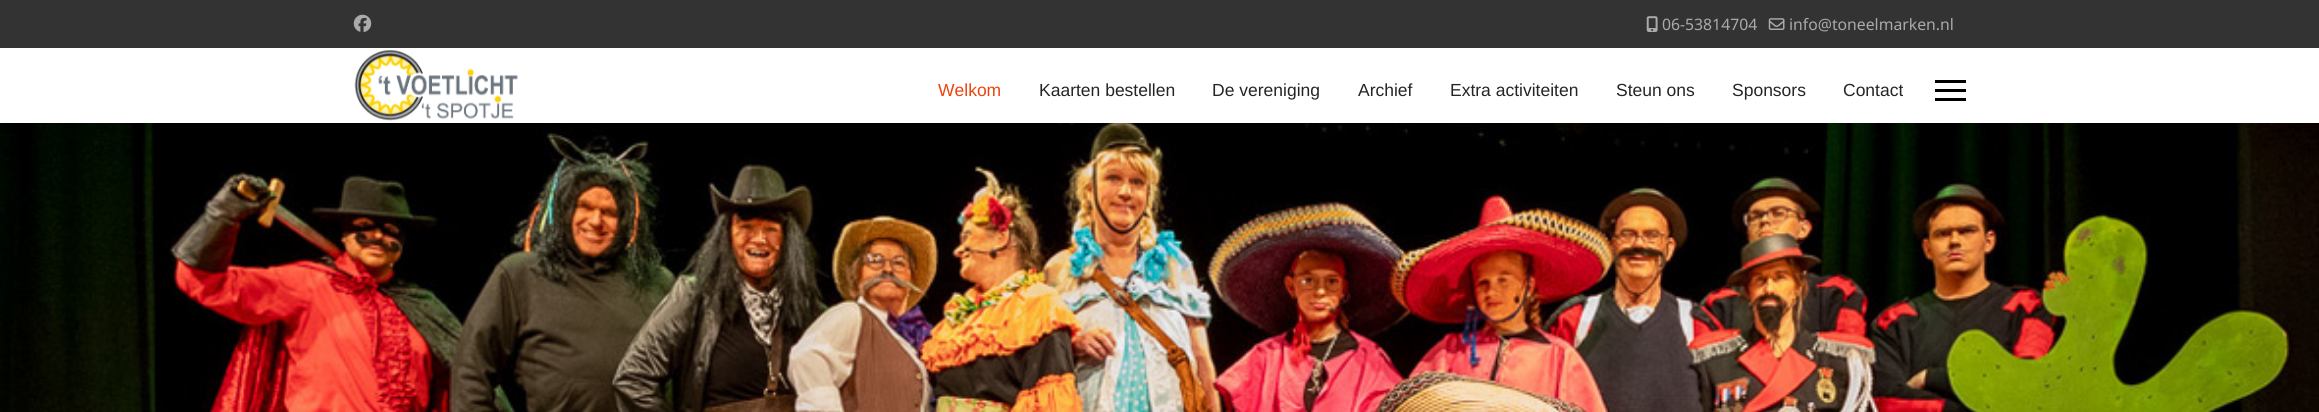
import math
import cairocffi as cairo

surface = cairo.ImageSurface(cairo.FORMAT_RGB24, 2319, 412)
cr = cairo.Context(surface)
options = cairo.FontOptions()
options.set_hint_metrics(cairo.HINT_METRICS_OFF)
options.set_hint_style(cairo.HINT_STYLE_NONE)
cr.set_font_options(options)
cr.set_miter_limit(4)


def use_color(code):
    cr.set_source_rgb(*(v / 255 for v in bytes.fromhex(code[-6:])))


def picture(path, x, y, w, h):
    cr.save()
    cr.set_source_surface(cairo.ImageSurface.create_from_png(path), x, y)
    cr.rectangle(x, y, w, h)
    cr.fill()
    cr.restore()


use_color("#333333")
cr.paint()
picture("img1.png", 353, 14, 19, 18)
picture("img2.png", 1646, 16, 12, 16)
cr.select_font_face("Noto Sans")
cr.set_font_size(15.75)
use_color("#aaaaaa")
cr.move_to(1662, 30)
cr.show_text("06-53814704")
picture("img3.png", 1768, 18, 17, 12)
cr.move_to(1789, 30)
cr.show_text("info@toneelmarken.nl")
use_color("#ffffff")
cr.rectangle(0, 48, 2319, 75)
cr.fill()
picture("img4.png", 354, 50, 164, 71)
cr.select_font_face("Liberation Sans")
cr.set_font_size(17.5)
use_color("#ec430f")
cr.move_to(938, 96)
cr.show_text("Welkom")
use_color("#252525")
cr.move_to(1039, 96)
cr.show_text("Kaarten bestellen")
cr.move_to(1212, 96)
cr.show_text("De vereniging")
cr.move_to(1358, 96)
cr.show_text("Archief")
cr.move_to(1450, 96)
cr.show_text("Extra activiteiten")
cr.move_to(1616, 96)
cr.show_text("Steun ons")
cr.move_to(1732, 96)
cr.show_text("Sponsors")
cr.move_to(1843, 96)
cr.show_text("Contact")
use_color("#000000")
cr.rectangle(1935, 80, 31, 3)
cr.fill()
cr.rectangle(1935, 89, 31, 3)
cr.fill()
cr.rectangle(1935, 98, 31, 3)
cr.fill()
picture("img5.png", 0, 123, 2319, 289)
surface.write_to_png("result.png")
